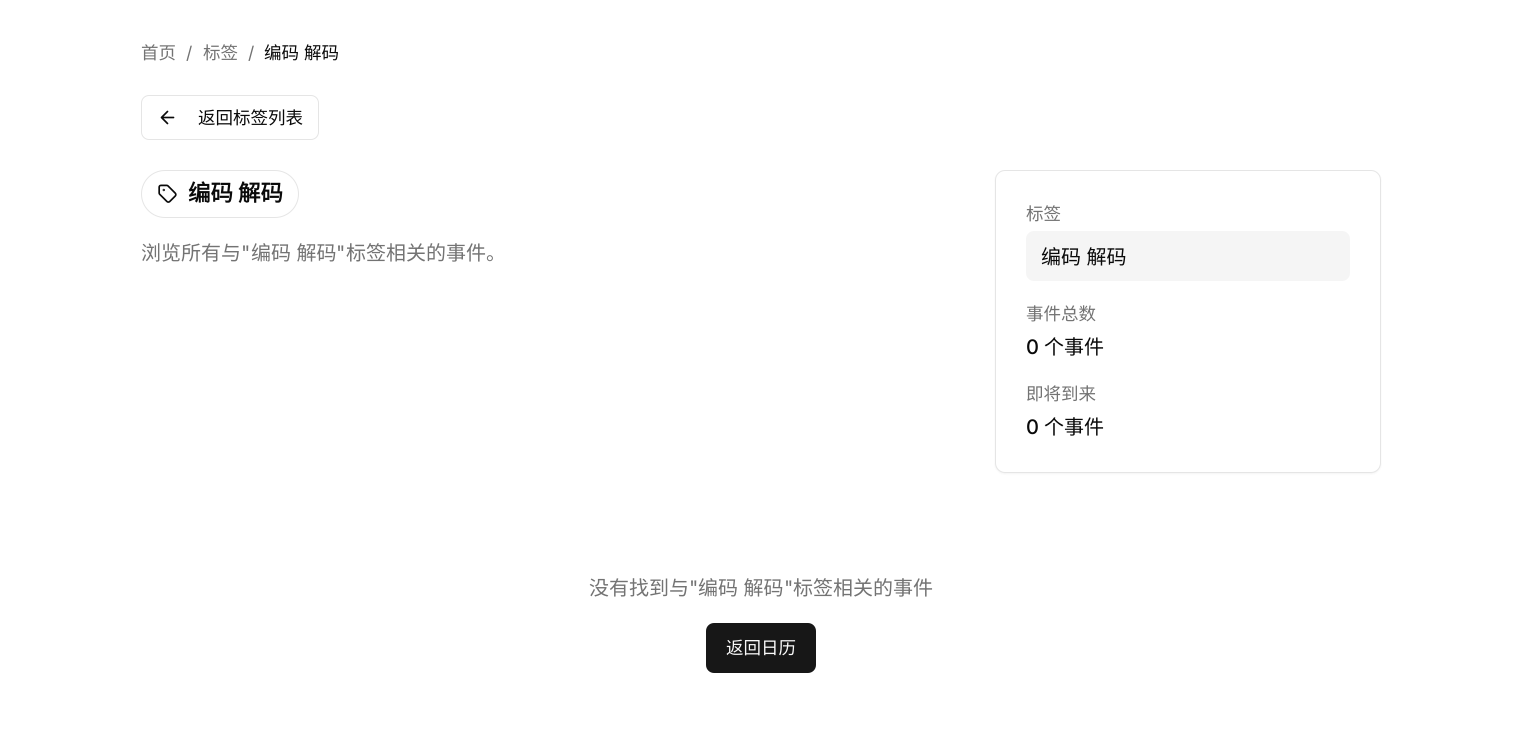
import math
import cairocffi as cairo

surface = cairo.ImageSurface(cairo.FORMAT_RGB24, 1522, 744)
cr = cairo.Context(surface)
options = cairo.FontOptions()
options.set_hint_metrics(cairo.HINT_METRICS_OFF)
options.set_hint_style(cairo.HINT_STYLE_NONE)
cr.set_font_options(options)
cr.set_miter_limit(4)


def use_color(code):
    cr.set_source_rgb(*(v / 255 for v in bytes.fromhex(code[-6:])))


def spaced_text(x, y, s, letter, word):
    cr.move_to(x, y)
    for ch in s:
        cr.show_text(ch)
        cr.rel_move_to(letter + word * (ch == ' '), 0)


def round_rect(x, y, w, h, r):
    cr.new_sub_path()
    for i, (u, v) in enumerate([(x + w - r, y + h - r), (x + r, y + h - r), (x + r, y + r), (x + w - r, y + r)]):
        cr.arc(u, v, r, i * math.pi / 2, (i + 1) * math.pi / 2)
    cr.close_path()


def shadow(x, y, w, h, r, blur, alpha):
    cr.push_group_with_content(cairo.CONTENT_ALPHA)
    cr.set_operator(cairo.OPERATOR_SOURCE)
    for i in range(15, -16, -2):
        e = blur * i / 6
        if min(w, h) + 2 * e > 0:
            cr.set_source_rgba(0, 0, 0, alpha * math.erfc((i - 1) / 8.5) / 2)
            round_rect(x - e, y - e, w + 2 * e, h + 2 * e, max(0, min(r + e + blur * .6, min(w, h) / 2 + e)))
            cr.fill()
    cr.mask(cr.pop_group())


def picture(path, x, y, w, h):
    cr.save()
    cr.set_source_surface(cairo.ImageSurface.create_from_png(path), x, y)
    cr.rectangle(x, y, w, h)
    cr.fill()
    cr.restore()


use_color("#ffffff")
cr.paint()
cr.select_font_face("Noto Sans CJK SC")
cr.set_font_size(17.5)
use_color("#737373")
cr.move_to(141, 59)
cr.show_text("首页")
cr.select_font_face("Inter")
cr.move_to(186, 59)
cr.show_text("/")
cr.select_font_face("Noto Sans CJK SC")
cr.move_to(203, 59)
cr.show_text("标签")
cr.select_font_face("Inter")
cr.move_to(248, 59)
cr.show_text("/")
cr.select_font_face("Noto Sans CJK SC")
use_color("#0a0a0a")
spaced_text(264, 59, "编码 解码", 0, 1)
round_rect(141.5, 95.5, 177, 44, 7.5)
use_color("#e5e5e5")
cr.set_line_width(1)
cr.stroke()
cr.new_path()
cr.move_to(167.5, 123.5)
cr.line_to(161.5, 117.5)
cr.line_to(167.5, 111.5)
cr.move_to(173.5, 117.5)
cr.line_to(161.5, 117.5)
use_color("#0a0a0a")
cr.set_line_width(1.7)
cr.set_line_cap(cairo.LINE_CAP_ROUND)
cr.set_line_join(cairo.LINE_JOIN_ROUND)
cr.stroke()
cr.move_to(198, 124)
cr.show_text("返回标签列表")
round_rect(141.5, 170.5, 157, 47, 23.5)
use_color("#e5e5e5")
cr.set_line_width(1)
cr.set_line_cap(cairo.LINE_CAP_BUTT)
cr.set_line_join(cairo.LINE_JOIN_MITER)
cr.stroke()
picture("img1.png", 158, 184, 19, 19)
cr.select_font_face("Noto Sans CJK SC", cairo.FONT_SLANT_NORMAL, cairo.FONT_WEIGHT_BOLD)
cr.set_font_size(22.5)
use_color("#0a0a0a")
cr.move_to(188, 201)
cr.show_text("编码 解码")
cr.select_font_face("Noto Sans CJK SC")
cr.set_font_size(20)
use_color("#737373")
cr.move_to(141, 260)
cr.show_text("浏览所有与")
cr.select_font_face("Inter")
cr.move_to(241, 260)
cr.show_text("\"")
cr.select_font_face("Noto Sans CJK SC")
spaced_text(251, 260, "编码 解码", 0, 1)
cr.select_font_face("Inter")
cr.move_to(336, 260)
cr.show_text("\"")
cr.select_font_face("Noto Sans CJK SC")
cr.move_to(346, 260)
cr.show_text("标签相关的事件。")
use_color("#000000")
shadow(995, 171, 386, 303, 10, 1, 0.05)
use_color("#ffffff")
round_rect(995.5, 170.5, 385, 302, 9.5)
cr.fill_preserve()
use_color("#e5e5e5")
cr.stroke()
cr.set_font_size(17.5)
use_color("#737373")
cr.move_to(1026, 220)
cr.show_text("标签")
use_color("#f5f5f5")
round_rect(1026, 231, 324, 50, 8)
cr.fill()
cr.set_font_size(20)
use_color("#0a0a0a")
spaced_text(1041, 264, "编码 解码", 0, 1)
cr.set_font_size(17.5)
use_color("#737373")
cr.move_to(1026, 320)
cr.show_text("事件总数")
cr.select_font_face("Inter Medium")
cr.set_font_size(20)
use_color("#0a0a0a")
cr.move_to(1026, 354)
cr.show_text("0")
cr.select_font_face("Noto Sans CJK SC")
cr.move_to(1044, 354)
cr.show_text("个事件")
cr.set_font_size(17.5)
use_color("#737373")
cr.move_to(1026, 400)
cr.show_text("即将到来")
cr.select_font_face("Inter Medium")
cr.set_font_size(20)
use_color("#0a0a0a")
cr.move_to(1026, 434)
cr.show_text("0")
cr.select_font_face("Noto Sans CJK SC")
cr.move_to(1044, 434)
cr.show_text("个事件")
use_color("#737373")
cr.move_to(589, 595)
cr.show_text("没有找到与")
cr.select_font_face("Inter")
cr.move_to(689, 595)
cr.show_text("\"")
cr.select_font_face("Noto Sans CJK SC")
spaced_text(698, 595, "编码 解码", 0, 1)
cr.select_font_face("Inter")
cr.move_to(784, 595)
cr.show_text("\"")
cr.select_font_face("Noto Sans CJK SC")
cr.move_to(793, 595)
cr.show_text("标签相关的事件")
use_color("#171717")
round_rect(706, 623, 110, 50, 8)
cr.fill()
cr.set_font_size(17.5)
use_color("#fafafa")
cr.move_to(726, 654)
cr.show_text("返回日历")
surface.write_to_png("result.png")
